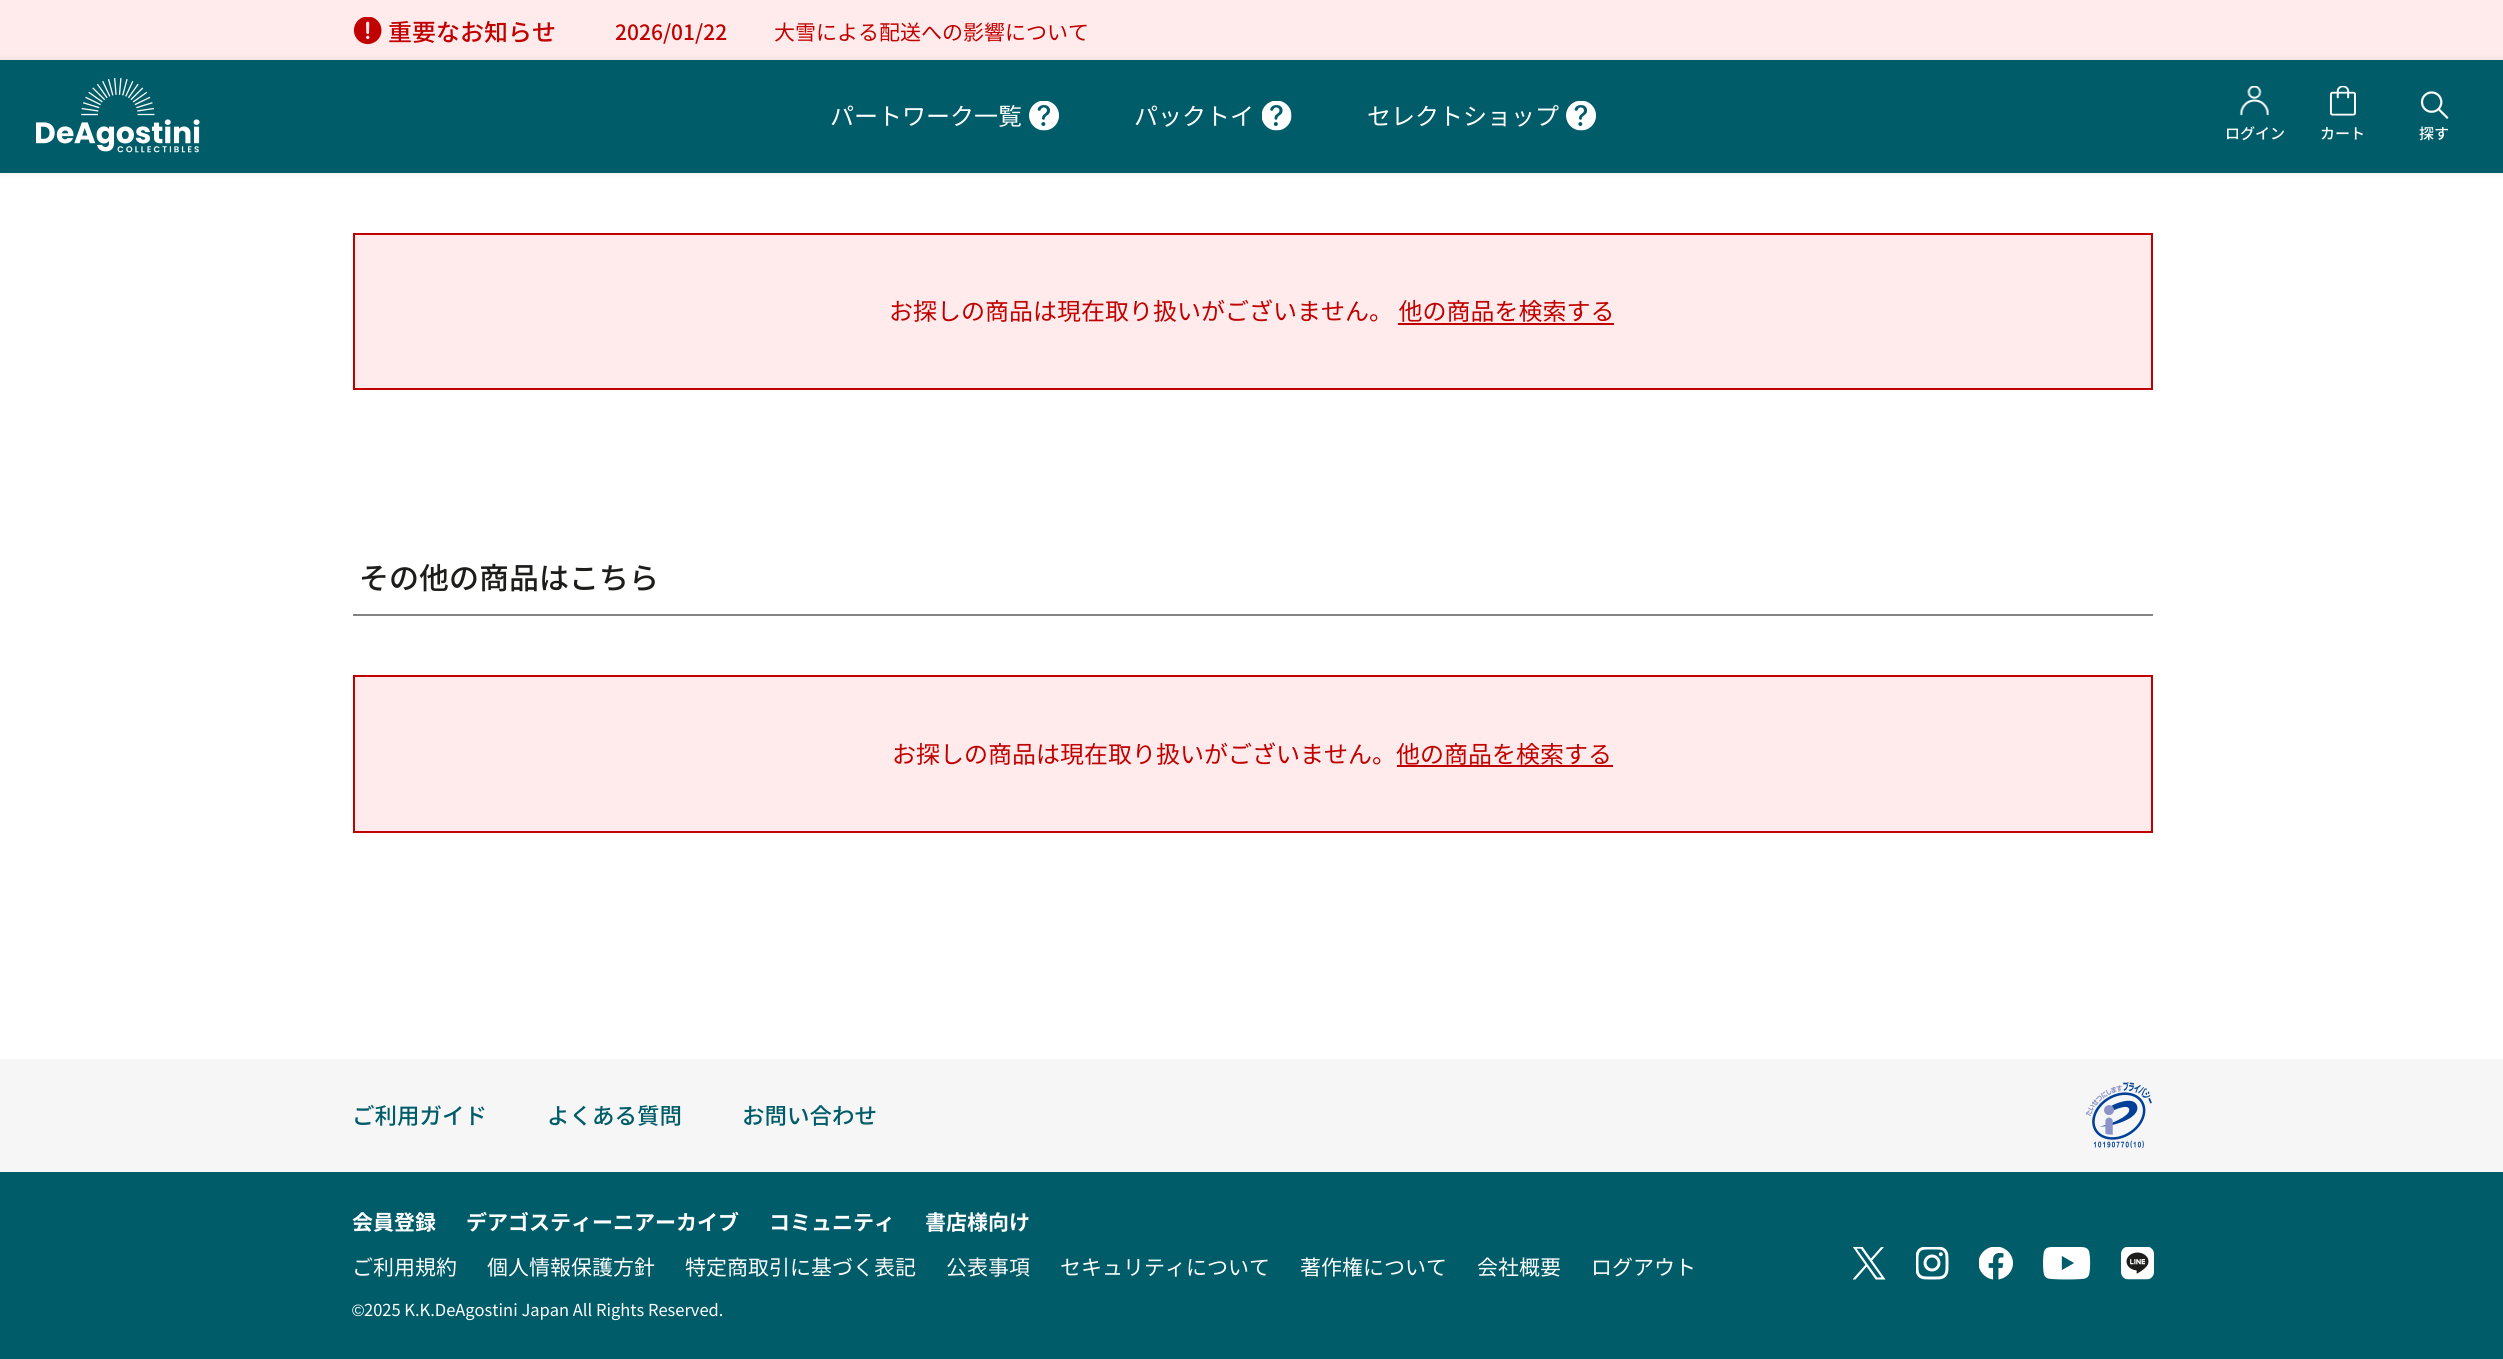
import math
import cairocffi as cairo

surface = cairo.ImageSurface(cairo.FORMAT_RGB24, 2503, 1359)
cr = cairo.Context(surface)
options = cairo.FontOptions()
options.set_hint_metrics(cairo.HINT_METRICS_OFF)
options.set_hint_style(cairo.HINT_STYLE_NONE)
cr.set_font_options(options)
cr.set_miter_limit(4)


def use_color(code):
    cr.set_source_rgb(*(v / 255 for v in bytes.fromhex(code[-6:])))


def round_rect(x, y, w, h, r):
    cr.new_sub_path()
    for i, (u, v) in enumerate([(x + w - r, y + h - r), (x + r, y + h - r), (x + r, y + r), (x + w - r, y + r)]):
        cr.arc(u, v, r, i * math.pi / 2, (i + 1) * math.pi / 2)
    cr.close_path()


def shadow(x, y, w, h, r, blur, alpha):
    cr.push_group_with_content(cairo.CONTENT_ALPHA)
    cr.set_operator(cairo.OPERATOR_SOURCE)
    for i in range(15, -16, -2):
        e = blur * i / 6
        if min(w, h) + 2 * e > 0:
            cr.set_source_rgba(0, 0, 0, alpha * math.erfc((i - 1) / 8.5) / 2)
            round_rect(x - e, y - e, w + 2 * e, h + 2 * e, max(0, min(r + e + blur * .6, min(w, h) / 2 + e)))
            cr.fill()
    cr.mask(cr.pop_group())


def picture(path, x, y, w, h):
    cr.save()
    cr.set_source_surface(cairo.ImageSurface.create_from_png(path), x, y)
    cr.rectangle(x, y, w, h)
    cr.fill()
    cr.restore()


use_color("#ffffff")
cr.paint()
use_color("#ffebeb")
cr.rectangle(0, 0, 2503, 60)
cr.fill()
picture("img1.png", 353, 17, 29, 28)
cr.select_font_face("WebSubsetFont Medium")
cr.set_font_size(24)
use_color("#c10000")
cr.move_to(388, 41)
cr.show_text("重要なお知らせ")
cr.set_font_size(21)
cr.move_to(615, 40)
cr.show_text("2026/01/22")
cr.select_font_face("WebSubsetFont")
cr.move_to(774, 40)
cr.show_text("大雪による配送への影響について")
use_color("#000000")
shadow(0, 60, 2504, 113, 0, 3, 0.1)
use_color("#005c69")
cr.rectangle(0, 60, 2503, 113)
cr.fill()
picture("img2.png", 36, 78, 164, 75)
cr.set_font_size(24)
use_color("#ffffff")
cr.move_to(830, 125)
cr.show_text("パートワーク一覧")
picture("img3.png", 1029, 101, 30, 30)
cr.move_to(1134, 125)
cr.show_text("パックトイ")
picture("img4.png", 1262, 101, 30, 30)
cr.move_to(1367, 125)
cr.show_text("セレクトショップ")
picture("img3.png", 1566, 101, 30, 30)
picture("img5.png", 2239, 86, 31, 30)
cr.select_font_face("WebSubsetFont Medium")
cr.set_font_size(15)
cr.move_to(2225, 139)
cr.show_text("ログイン")
picture("img6.png", 2329, 86, 27, 30)
cr.move_to(2320, 139)
cr.show_text("カート")
picture("img7.png", 2420, 91, 29, 28)
cr.move_to(2419, 139)
cr.show_text("探す")
use_color("#ffebeb")
cr.rectangle(354, 234, 1798, 155)
cr.fill_preserve()
use_color("#c10000")
cr.stroke()
cr.select_font_face("WebSubsetFont")
cr.set_font_size(24)
cr.move_to(889, 320)
cr.show_text("お探しの商品は現在取り扱いがございません。 他の商品を検索する")
cr.rectangle(1398, 323, 216, 2)
cr.fill()
use_color("#838383")
cr.rectangle(353, 614, 1800, 2)
cr.fill()
cr.select_font_face("WebSubsetFont Medium")
cr.set_font_size(30)
use_color("#1d1d1b")
cr.move_to(359, 589)
cr.show_text("その他の商品はこちら")
use_color("#ffebeb")
cr.rectangle(354, 676, 1798, 156)
cr.fill_preserve()
use_color("#c10000")
cr.stroke()
cr.select_font_face("WebSubsetFont")
cr.set_font_size(24)
cr.move_to(892, 763)
cr.show_text("お探しの商品は現在取り扱いがございません。他の商品を検索する")
cr.rectangle(1397, 765, 216, 2)
cr.fill()
use_color("#f6f6f6")
cr.rectangle(0, 1059, 2503, 113)
cr.fill()
cr.select_font_face("WebSubsetFont Medium")
cr.set_font_size(22.5)
use_color("#005c69")
cr.move_to(352, 1124)
cr.show_text("ご利用ガイド")
cr.move_to(547, 1124)
cr.show_text("よくある質問")
cr.move_to(742, 1124)
cr.show_text("お問い合わせ")
picture("img8.png", 2085, 1082, 67, 67)
cr.rectangle(0, 1172, 2503, 187)
cr.fill()
cr.select_font_face("WebSubsetFont", cairo.FONT_SLANT_NORMAL, cairo.FONT_WEIGHT_BOLD)
cr.set_font_size(21)
use_color("#ffffff")
cr.move_to(352, 1230)
cr.show_text("会員登録")
cr.move_to(466, 1230)
cr.show_text("デアゴスティーニアーカイブ")
cr.move_to(769, 1230)
cr.show_text("コミュニティ")
cr.move_to(925, 1230)
cr.show_text("書店様向け")
cr.select_font_face("WebSubsetFont")
cr.move_to(352, 1275)
cr.show_text("ご利用規約")
cr.move_to(487, 1275)
cr.show_text("個人情報保護方針")
cr.move_to(685, 1275)
cr.show_text("特定商取引に基づく表記")
cr.move_to(946, 1275)
cr.show_text("公表事項")
cr.move_to(1060, 1275)
cr.show_text("セキュリティについて")
cr.move_to(1300, 1275)
cr.show_text("著作権について")
cr.move_to(1477, 1275)
cr.show_text("会社概要")
cr.move_to(1591, 1275)
cr.show_text("ログアウト")
cr.select_font_face("Liberation Sans")
cr.set_font_size(16.5)
cr.move_to(352, 1316)
cr.show_text("©")
cr.select_font_face("WebSubsetFont")
cr.move_to(364, 1316)
cr.show_text("2025 K.K.DeAgostini Japan All Rights Reserved.")
picture("img9.png", 1853, 1247, 33, 33)
picture("img10.png", 1916, 1247, 33, 33)
picture("img11.png", 1979, 1247, 34, 33)
picture("img12.png", 2043, 1247, 48, 33)
picture("img13.png", 2121, 1247, 33, 33)
surface.write_to_png("result.png")
